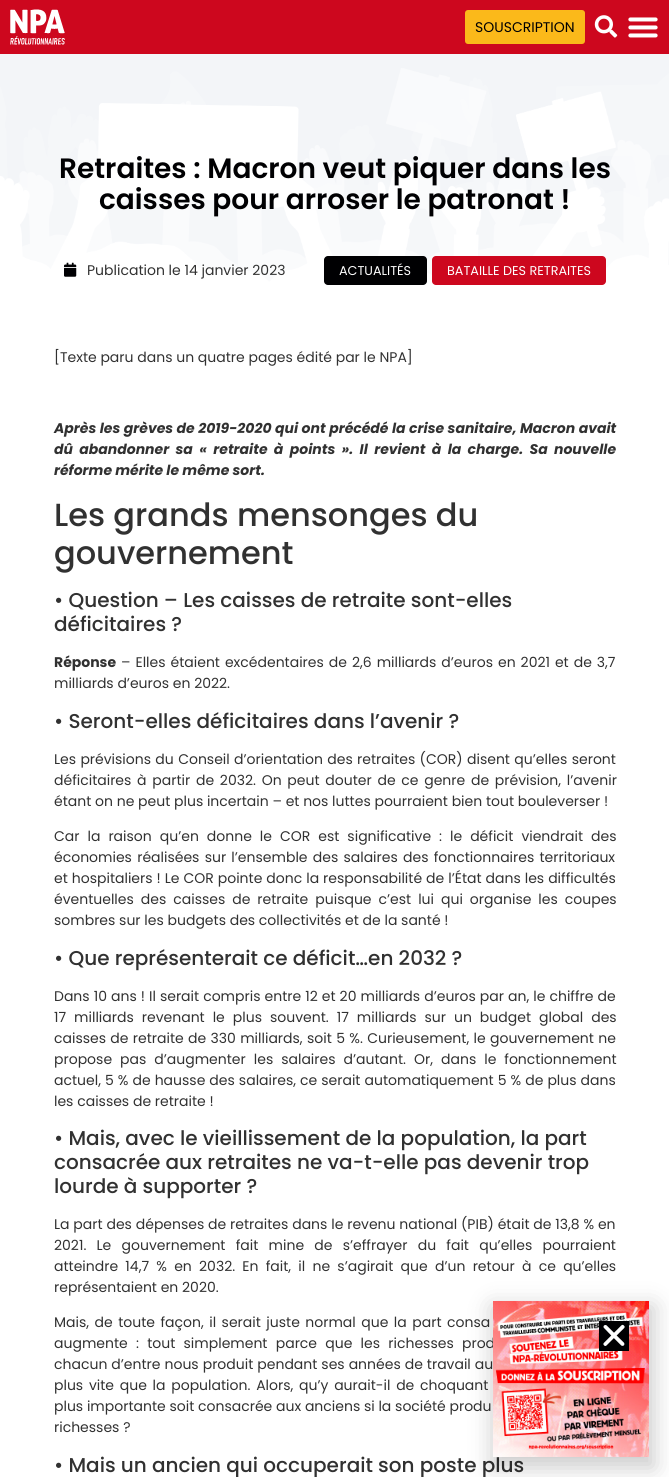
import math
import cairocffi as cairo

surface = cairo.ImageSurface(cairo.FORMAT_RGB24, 669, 1477)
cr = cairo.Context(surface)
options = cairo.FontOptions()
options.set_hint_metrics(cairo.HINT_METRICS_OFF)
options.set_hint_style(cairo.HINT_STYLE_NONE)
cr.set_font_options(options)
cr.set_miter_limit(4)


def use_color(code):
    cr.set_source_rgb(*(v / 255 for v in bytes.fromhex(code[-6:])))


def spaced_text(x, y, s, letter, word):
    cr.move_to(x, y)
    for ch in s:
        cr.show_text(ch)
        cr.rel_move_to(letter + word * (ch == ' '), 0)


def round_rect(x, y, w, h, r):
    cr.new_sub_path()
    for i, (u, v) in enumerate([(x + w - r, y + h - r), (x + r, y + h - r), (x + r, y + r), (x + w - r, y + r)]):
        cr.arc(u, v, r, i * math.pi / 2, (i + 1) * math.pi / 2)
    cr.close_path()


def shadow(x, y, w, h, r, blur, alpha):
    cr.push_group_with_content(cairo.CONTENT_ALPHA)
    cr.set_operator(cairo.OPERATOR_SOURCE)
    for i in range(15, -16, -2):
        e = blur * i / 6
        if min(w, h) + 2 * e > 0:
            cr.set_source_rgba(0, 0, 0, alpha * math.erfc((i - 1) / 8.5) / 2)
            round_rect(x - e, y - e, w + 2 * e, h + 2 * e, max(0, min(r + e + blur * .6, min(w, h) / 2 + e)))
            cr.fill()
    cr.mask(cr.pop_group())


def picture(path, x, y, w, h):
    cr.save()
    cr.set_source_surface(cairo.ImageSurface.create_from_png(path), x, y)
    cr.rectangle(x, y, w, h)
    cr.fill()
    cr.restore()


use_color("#ffffff")
cr.paint()
use_color("#cd071e")
cr.rectangle(0, 0, 669, 54)
cr.fill()
picture("img1.png", 10, 9, 55, 36)
use_color("#fbb91a")
round_rect(465, 10, 120, 34, 3)
cr.fill()
cr.select_font_face("Poppins")
cr.set_font_size(14)
use_color("#000002")
cr.move_to(475, 32)
cr.show_text("SOUSCRIPTION")
picture("img2.png", 594, 15, 24, 23)
picture("img3.png", 628, 17, 30, 21)
use_color("#f3f5f8")
cr.rectangle(0, 54, 669, 228)
cr.fill()
picture("img4.png", 0, 68, 669, 257)
cr.select_font_face("Poppins SemiBold")
cr.set_font_size(28)
use_color("#000002")
cr.move_to(59, 178)
cr.show_text("Retraites : Macron veut piquer dans les")
cr.move_to(99, 209)
cr.show_text("caisses pour arroser le patronat !")
picture("img5.png", 64, 262, 13, 15)
cr.select_font_face("Poppins")
cr.set_font_size(14)
use_color("#313131")
cr.move_to(87, 275)
cr.show_text("Publication le 14 janvier 2023")
use_color("#000002")
round_rect(324, 256, 103, 29, 4)
cr.fill()
cr.set_font_size(12.75)
use_color("#ffffff")
cr.move_to(339, 275)
cr.show_text("ACTUALITÉS")
use_color("#cd071e")
round_rect(432, 256, 174, 29, 4)
cr.fill()
use_color("#ffffff")
cr.move_to(447, 275)
cr.show_text("BATAILLE DES RETRAITES")
cr.set_font_size(14)
use_color("#313131")
cr.move_to(54, 362)
cr.show_text("[Texte paru dans un quatre pages édité par le NPA]")
cr.select_font_face("Poppins", cairo.FONT_SLANT_ITALIC, cairo.FONT_WEIGHT_BOLD)
spaced_text(54, 433, "Après les grèves de 2019-2020 qui ont précédé la crise sanitaire, Macron avait", 0, 0.25)
spaced_text(54, 454, "dû abandonner sa « retraite à points ». Il revient à la charge. Sa nouvelle", 0, 3.1)
cr.move_to(54, 475)
cr.show_text("réforme mérite le même sort.")
cr.select_font_face("Poppins Medium")
cr.set_font_size(32)
cr.move_to(54, 526)
cr.show_text("Les grands mensonges du")
cr.move_to(54, 564)
cr.show_text("gouvernement")
cr.set_font_size(20)
cr.move_to(54, 607)
cr.show_text("• Question – Les caisses de retraite sont-elles")
cr.move_to(54, 631)
cr.show_text("déficitaires ?")
cr.select_font_face("Poppins", cairo.FONT_SLANT_NORMAL, cairo.FONT_WEIGHT_BOLD)
cr.set_font_size(14)
cr.move_to(54, 667)
cr.show_text("Réponse")
cr.select_font_face("Poppins")
spaced_text(121, 667, "– Elles étaient excédentaires de 2,6 milliards d’euros en 2021 et de 3,7", 0, 1.25)
cr.move_to(54, 688)
cr.show_text("milliards d’euros en 2022.")
cr.select_font_face("Poppins Medium")
cr.set_font_size(20)
cr.move_to(54, 728)
cr.show_text("• Seront-elles déficitaires dans l’avenir ?")
cr.select_font_face("Poppins")
cr.set_font_size(14)
spaced_text(54, 764, "Les prévisions du Conseil d’orientation des retraites (COR) disent qu’elles seront", 0, 0.6)
spaced_text(54, 785, "déficitaires à partir de 2032. On peut douter de ce genre de prévision, l’avenir", 0, 2)
cr.move_to(54, 806)
cr.show_text("étant on ne peut plus incertain – et nos luttes pourraient bien tout bouleverser !")
spaced_text(54, 841, "Car la raison qu’en donne le COR est significative : le déficit viendrait des", 0, 4.25)
spaced_text(54, 862, "économies réalisées sur l’ensemble des salaires des fonctionnaires territoriaux", 0, 1.5)
spaced_text(54, 883, "et hospitaliers ! Le COR pointe donc la responsabilité de l’État dans les difficultés", 0, 0.25)
spaced_text(54, 904, "éventuelles des caisses de retraite puisque c’est lui qui organise les coupes", 0, 3.25)
cr.move_to(54, 925)
cr.show_text("sombres sur les budgets des collectivités et de la santé !")
cr.select_font_face("Poppins Medium")
cr.set_font_size(20)
cr.move_to(54, 965)
cr.show_text("• Que représenterait ce déficit…en 2032 ?")
cr.select_font_face("Poppins")
cr.set_font_size(14)
spaced_text(54, 1001, "Dans 10 ans ! Il serait compris entre 12 et 20 milliards d’euros par an, le chiffre de", 0, 0.3)
spaced_text(54, 1022, "17 milliards revenant le plus souvent. 17 milliards sur un budget global des", 0, 4.25)
spaced_text(54, 1043, "caisses de retraite de 330 milliards, soit 5 %. Curieusement, le gouvernement ne", 0, 0.6)
spaced_text(54, 1064, "propose pas d’augmenter les salaires d’autant. Or, dans le fonctionnement", 0, 4.25)
spaced_text(54, 1085, "actuel, 5 % de hausse des salaires, ce serait automatiquement 5 % de plus dans", 0, 0.3)
cr.move_to(54, 1106)
cr.show_text("les caisses de retraite !")
cr.select_font_face("Poppins Medium")
cr.set_font_size(20)
cr.move_to(54, 1145)
cr.show_text("• Mais, avec le vieillissement de la population, la part")
cr.move_to(54, 1169)
cr.show_text("consacrée aux retraites ne va-t-elle pas devenir trop")
cr.move_to(54, 1193)
cr.show_text("lourde à supporter ?")
cr.select_font_face("Poppins")
cr.set_font_size(14)
spaced_text(54, 1229, "La part des dépenses de retraites dans le revenu national (PIB) était de 13,8 % en", 0, 0.1)
spaced_text(54, 1250, "2021. Le gouvernement fait mine de s’effrayer du fait qu’elles pourraient", 0, 6.5)
spaced_text(54, 1271, "atteindre 14,7 % en 2032. En fait, il ne s’agirait que d’un retour à ce qu’elles", 0, 3.5)
cr.move_to(54, 1292)
cr.show_text("représentaient en 2020.")
spaced_text(54, 1327, "Mais, de toute façon, il serait juste normal que la part consa", 0, 1.75)
spaced_text(54, 1348, "augmente : tout simplement parce que les richesses prod", 0, 4.5)
spaced_text(54, 1369, "chacun d’entre nous produit pendant ses années de travail au", 0, 0.25)
spaced_text(54, 1390, "plus vite que la population. Alors, qu’y aurait-il de choquant", 0, 2)
cr.move_to(54, 1411)
cr.show_text("plus importante soit consacrée aux anciens si la société produ")
cr.move_to(54, 1432)
cr.show_text("richesses ?")
cr.select_font_face("Poppins Medium")
cr.set_font_size(20)
cr.move_to(54, 1472)
cr.show_text("• Mais un ancien qui occuperait son poste plus")
use_color("#000000")
shadow(492, 1306, 162, 162, 0, 11.5, 0.2)
picture("img6.png", 493, 1301, 156, 156)
use_color("#000002")
cr.rectangle(599, 1321, 30, 30)
cr.fill()
picture("img7.png", 603, 1324, 22, 22)
surface.write_to_png("result.png")
